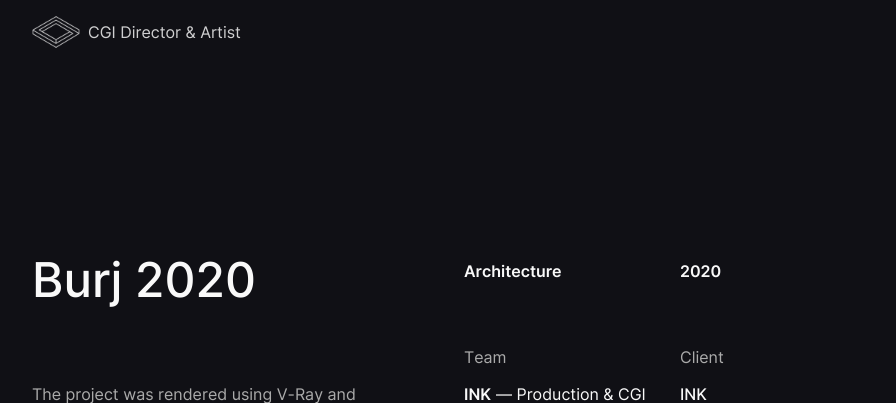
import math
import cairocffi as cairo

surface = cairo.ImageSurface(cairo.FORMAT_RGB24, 896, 403)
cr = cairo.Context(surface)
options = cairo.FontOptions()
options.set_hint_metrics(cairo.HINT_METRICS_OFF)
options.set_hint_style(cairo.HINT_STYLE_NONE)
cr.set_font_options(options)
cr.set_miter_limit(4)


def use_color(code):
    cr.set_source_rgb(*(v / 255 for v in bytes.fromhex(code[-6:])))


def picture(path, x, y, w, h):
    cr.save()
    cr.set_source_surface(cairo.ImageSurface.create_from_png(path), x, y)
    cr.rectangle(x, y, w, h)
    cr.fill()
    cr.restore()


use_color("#101015")
cr.paint()
picture("img1.png", 32, 16, 48, 32)
cr.select_font_face("Inter")
cr.set_font_size(16)
use_color("#cfcfd0")
cr.move_to(88, 38)
cr.show_text("CGI Director & Artist")
cr.select_font_face("Inter Medium")
cr.set_font_size(48)
use_color("#f9f9f9")
cr.move_to(32, 297)
cr.show_text("Burj 2020")
cr.select_font_face("Inter")
cr.set_font_size(16)
use_color("#aaaaaa")
cr.move_to(32, 400)
cr.show_text("The project was rendered using V-Ray and")
cr.select_font_face("Inter SemiBold")
use_color("#f9f9f9")
cr.move_to(464, 277)
cr.show_text("Architecture")
cr.move_to(680, 277)
cr.show_text("2020")
cr.select_font_face("Inter")
use_color("#aaaaaa")
cr.move_to(464, 363)
cr.show_text("Team")
cr.select_font_face("Inter SemiBold")
use_color("#f9f9f9")
cr.move_to(464, 400)
cr.show_text("INK")
cr.select_font_face("Inter")
cr.move_to(496, 400)
cr.show_text("— Production & CGI")
use_color("#aaaaaa")
cr.move_to(680, 363)
cr.show_text("Client")
cr.select_font_face("Inter Medium")
use_color("#f9f9f9")
cr.move_to(680, 400)
cr.show_text("INK")
surface.write_to_png("result.png")
